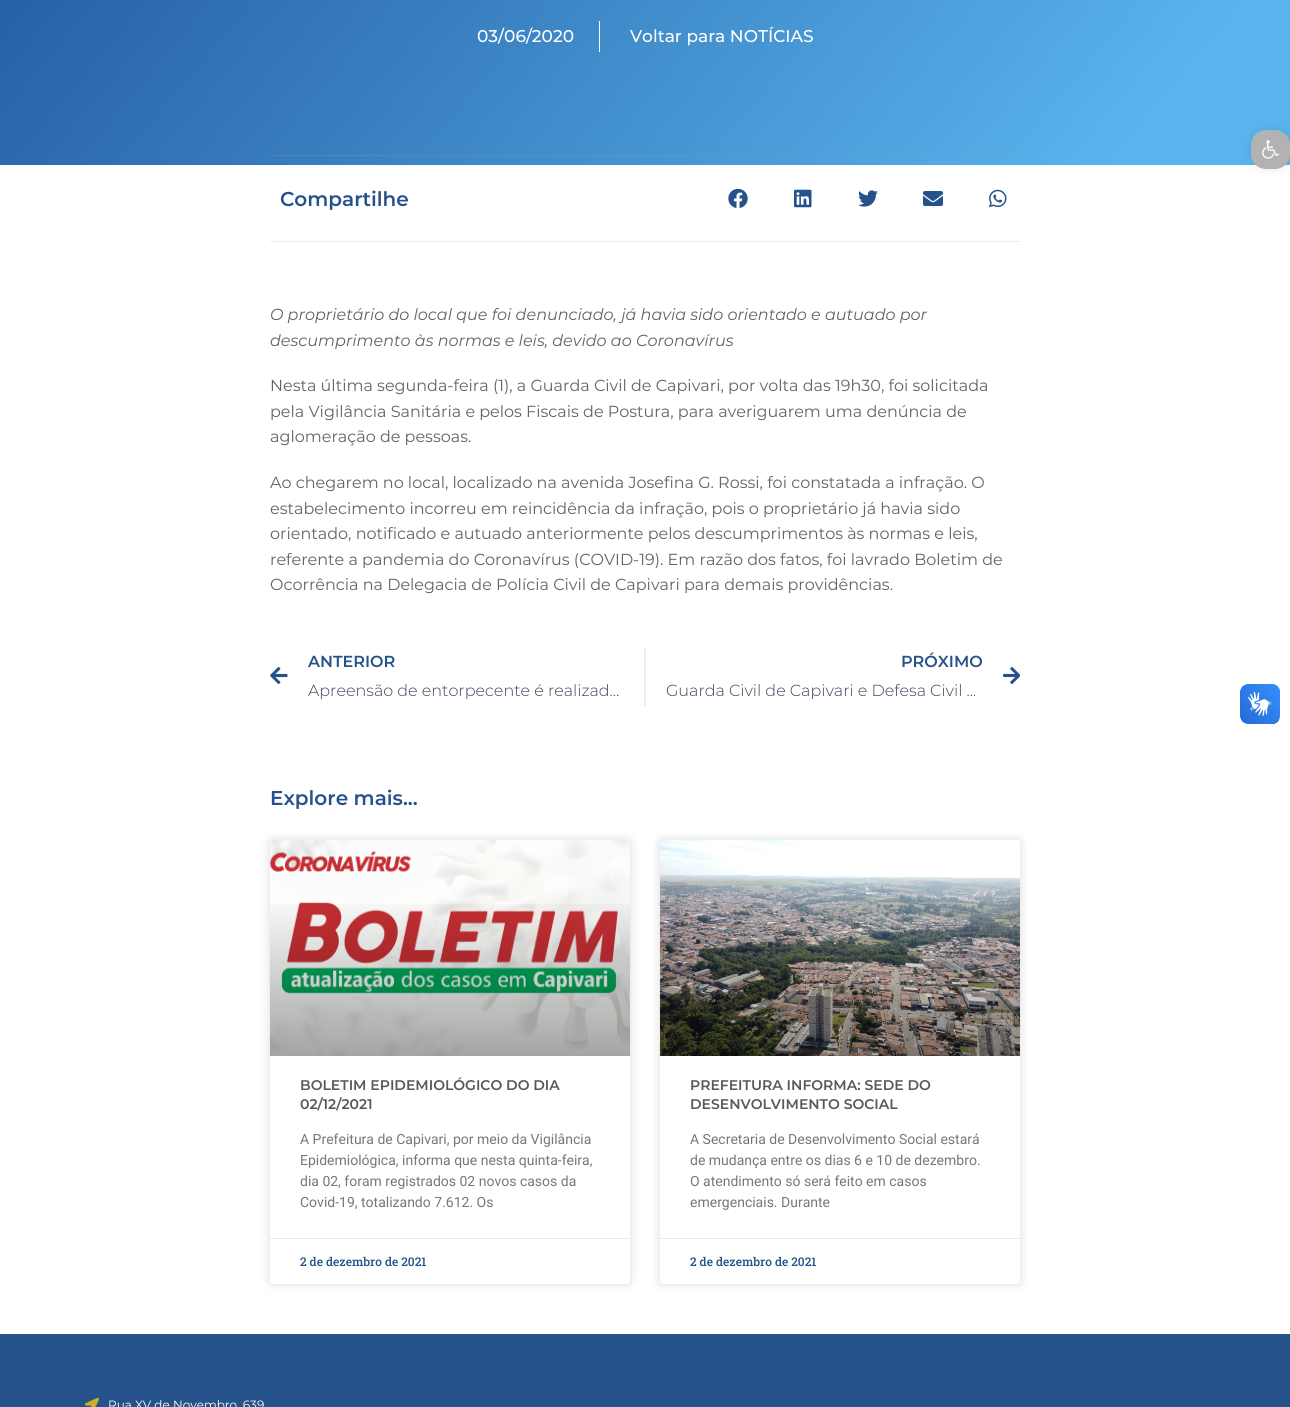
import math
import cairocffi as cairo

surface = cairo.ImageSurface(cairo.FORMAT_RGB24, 1290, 1407)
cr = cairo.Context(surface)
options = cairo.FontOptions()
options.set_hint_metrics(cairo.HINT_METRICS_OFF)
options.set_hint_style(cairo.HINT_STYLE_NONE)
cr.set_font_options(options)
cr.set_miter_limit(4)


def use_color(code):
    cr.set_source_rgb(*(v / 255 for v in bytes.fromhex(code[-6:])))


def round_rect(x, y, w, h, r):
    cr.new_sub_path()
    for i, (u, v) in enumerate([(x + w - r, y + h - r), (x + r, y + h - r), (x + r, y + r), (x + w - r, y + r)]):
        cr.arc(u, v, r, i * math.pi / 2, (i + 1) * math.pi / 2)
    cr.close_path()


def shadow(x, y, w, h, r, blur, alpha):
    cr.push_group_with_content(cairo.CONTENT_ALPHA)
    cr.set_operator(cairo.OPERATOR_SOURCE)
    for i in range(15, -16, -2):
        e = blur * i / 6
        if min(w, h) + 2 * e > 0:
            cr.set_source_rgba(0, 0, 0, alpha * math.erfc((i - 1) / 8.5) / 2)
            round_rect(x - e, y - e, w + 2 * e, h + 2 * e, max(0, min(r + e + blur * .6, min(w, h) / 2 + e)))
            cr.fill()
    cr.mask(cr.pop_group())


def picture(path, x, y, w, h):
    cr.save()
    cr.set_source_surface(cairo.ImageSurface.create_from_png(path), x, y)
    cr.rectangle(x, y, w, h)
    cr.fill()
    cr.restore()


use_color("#ffffff")
cr.paint()
gradient = cairo.LinearGradient(180, -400, 1110, 380)
gradient.add_color_stop_rgba(0, 0.125, 0.337, 0.612, 1)
gradient.add_color_stop_rgba(0.89, 0.349, 0.706, 0.933, 1)
cr.set_source(gradient)
cr.rectangle(0, 0, 1290, 165)
cr.fill()
gradient = cairo.LinearGradient(180, -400, 1110, 380)
gradient.add_color_stop_rgba(0, 0.224, 0.396, 0.624, 1)
gradient.add_color_stop_rgba(0.89, 0.404, 0.694, 0.882, 1)
cr.set_source(gradient)
cr.rectangle(270, 155, 750, 1)
cr.fill()
cr.select_font_face("Montserrat Medium")
cr.set_font_size(17)
use_color("#ffffff")
cr.move_to(477, 42)
cr.show_text("03/06/2020")
cr.rectangle(599, 21, 1, 31)
cr.fill()
cr.move_to(630, 42)
cr.show_text("Voltar para NOTÍCIAS")
use_color("#ecedef")
cr.rectangle(270, 241, 750, 1)
cr.fill()
cr.select_font_face("Montserrat SemiBold")
cr.set_font_size(20)
use_color("#26528c")
cr.move_to(280, 206)
cr.show_text("Compartilhe")
picture("img1.png", 728, 188, 20, 20)
picture("img2.png", 794, 189, 18, 19)
picture("img3.png", 858, 190, 20, 17)
picture("img4.png", 923, 191, 20, 15)
picture("img5.png", 989, 189, 18, 19)
cr.select_font_face("Montserrat", cairo.FONT_SLANT_ITALIC)
cr.set_font_size(16)
use_color("#646464")
cr.move_to(270, 320)
cr.show_text("O proprietário do local que foi denunciado, já havia sido orientado e autuado por")
cr.move_to(270, 346)
cr.show_text("descumprimento às normas e leis, devido ao Coronavírus")
cr.select_font_face("Montserrat")
cr.move_to(270, 391)
cr.show_text("Nesta última segunda-feira (1), a Guarda Civil de Capivari, por volta das 19h30, foi solicitada")
cr.move_to(270, 417)
cr.show_text("pela Vigilância Sanitária e pelos Fiscais de Postura, para averiguarem uma denúncia de")
cr.move_to(270, 442)
cr.show_text("aglomeração de pessoas.")
cr.move_to(270, 488)
cr.show_text("Ao chegarem no local, localizado na avenida Josefina G. Rossi, foi constatada a infração. O")
cr.move_to(270, 514)
cr.show_text("estabelecimento incorreu em reincidência da infração, pois o proprietário já havia sido")
cr.move_to(270, 539)
cr.show_text("orientado, notificado e autuado anteriormente pelos descumprimentos às normas e leis,")
cr.move_to(270, 565)
cr.show_text("referente a pandemia do Coronavírus (COVID-19). Em razão dos fatos, foi lavrado Boletim de")
cr.move_to(270, 590)
cr.show_text("Ocorrência na Delegacia de Polícia Civil de Capivari para demais providências.")
picture("img6.png", 270, 667, 18, 17)
cr.select_font_face("Montserrat SemiBold")
use_color("#26528c")
cr.move_to(308, 667)
cr.show_text("ANTERIOR")
cr.select_font_face("Montserrat Light")
use_color("#3d4459")
cr.move_to(308, 696)
cr.show_text("Apreensão de entorpecente é realizad…")
use_color("#ecedef")
cr.rectangle(644, 648, 2, 58)
cr.fill()
cr.select_font_face("Montserrat SemiBold")
use_color("#26528c")
cr.move_to(901, 667)
cr.show_text("PRÓXIMO")
cr.select_font_face("Montserrat Light")
use_color("#3d4459")
cr.move_to(666, 696)
cr.show_text("Guarda Civil de Capivari e Defesa Civil …")
picture("img7.png", 1003, 667, 17, 17)
cr.select_font_face("Montserrat SemiBold")
cr.set_font_size(20)
use_color("#26528c")
cr.move_to(270, 805)
cr.show_text("Explore mais...")
use_color("#000000")
shadow(270, 840, 360, 444, 3, 5, 0.15)
use_color("#ffffff")
round_rect(270, 840, 360, 444, 3)
cr.fill()
picture("img8.png", 270, 840, 360, 216)
gradient = cairo.LinearGradient(450, 1056, 450, 840)
gradient.add_color_stop_rgba(0, 0, 0, 0, 0.35)
gradient.add_color_stop_rgba(0.75, 0, 0, 0, 0)
cr.set_source(gradient)
cr.rectangle(270, 904, 360, 152)
cr.fill()
cr.set_font_size(14)
use_color("#54595f")
cr.move_to(300, 1090)
cr.show_text("BOLETIM EPIDEMIOLÓGICO DO DIA")
cr.move_to(300, 1109)
cr.show_text("02/12/2021")
cr.select_font_face("Roboto")
use_color("#777777")
cr.move_to(300, 1144)
cr.show_text("A Prefeitura de Capivari, por meio da Vigilância")
cr.move_to(300, 1165)
cr.show_text("Epidemiológica, informa que nesta quinta-feira,")
cr.move_to(300, 1186)
cr.show_text("dia 02, foram registrados 02 novos casos da")
cr.move_to(300, 1207)
cr.show_text("Covid-19, totalizando 7.612. Os")
use_color("#eaeaea")
cr.rectangle(270, 1238, 360, 1)
cr.fill()
cr.select_font_face("Roboto Slab Medium")
cr.set_font_size(12)
use_color("#26528c")
cr.move_to(300, 1266)
cr.show_text("2 de dezembro de 2021")
use_color("#000000")
shadow(660, 840, 360, 444, 3, 5, 0.15)
use_color("#ffffff")
round_rect(660, 840, 360, 444, 3)
cr.fill()
picture("img9.png", 660, 840, 360, 216)
gradient = cairo.LinearGradient(840, 1056, 840, 840)
gradient.add_color_stop_rgba(0, 0, 0, 0, 0.35)
gradient.add_color_stop_rgba(0.75, 0, 0, 0, 0)
cr.set_source(gradient)
cr.rectangle(660, 904, 360, 152)
cr.fill()
cr.select_font_face("Montserrat SemiBold")
cr.set_font_size(14)
use_color("#54595f")
cr.move_to(690, 1090)
cr.show_text("PREFEITURA INFORMA: SEDE DO")
cr.move_to(690, 1109)
cr.show_text("DESENVOLVIMENTO SOCIAL")
cr.select_font_face("Roboto")
use_color("#777777")
cr.move_to(690, 1144)
cr.show_text("A Secretaria de Desenvolvimento Social estará")
cr.move_to(690, 1165)
cr.show_text("de mudança entre os dias 6 e 10 de dezembro.")
cr.move_to(690, 1186)
cr.show_text("O atendimento só será feito em casos")
cr.move_to(690, 1207)
cr.show_text("emergenciais. Durante")
use_color("#eaeaea")
cr.rectangle(660, 1238, 360, 1)
cr.fill()
cr.select_font_face("Roboto Slab Medium")
cr.set_font_size(12)
use_color("#26528c")
cr.move_to(690, 1266)
cr.show_text("2 de dezembro de 2021")
cr.rectangle(0, 1334, 1290, 73)
cr.fill()
picture("img10.png", 85, 1397, 14, 10)
cr.select_font_face("Montserrat")
use_color("#ffffff")
cr.move_to(108, 1409)
cr.show_text("Rua XV de Novembro, 639")
use_color("#000000")
shadow(1251, 130, 39, 39, 15, 5, 0.1)
use_color("#b2b2b2")
round_rect(1251, 130, 39, 39, 15)
cr.fill()
picture("img11.png", 1262, 140, 18, 19)
picture("img12.png", 1240, 684, 40, 40)
picture("img13.png", 1240, 684, 40, 40)
surface.write_to_png("result.png")
